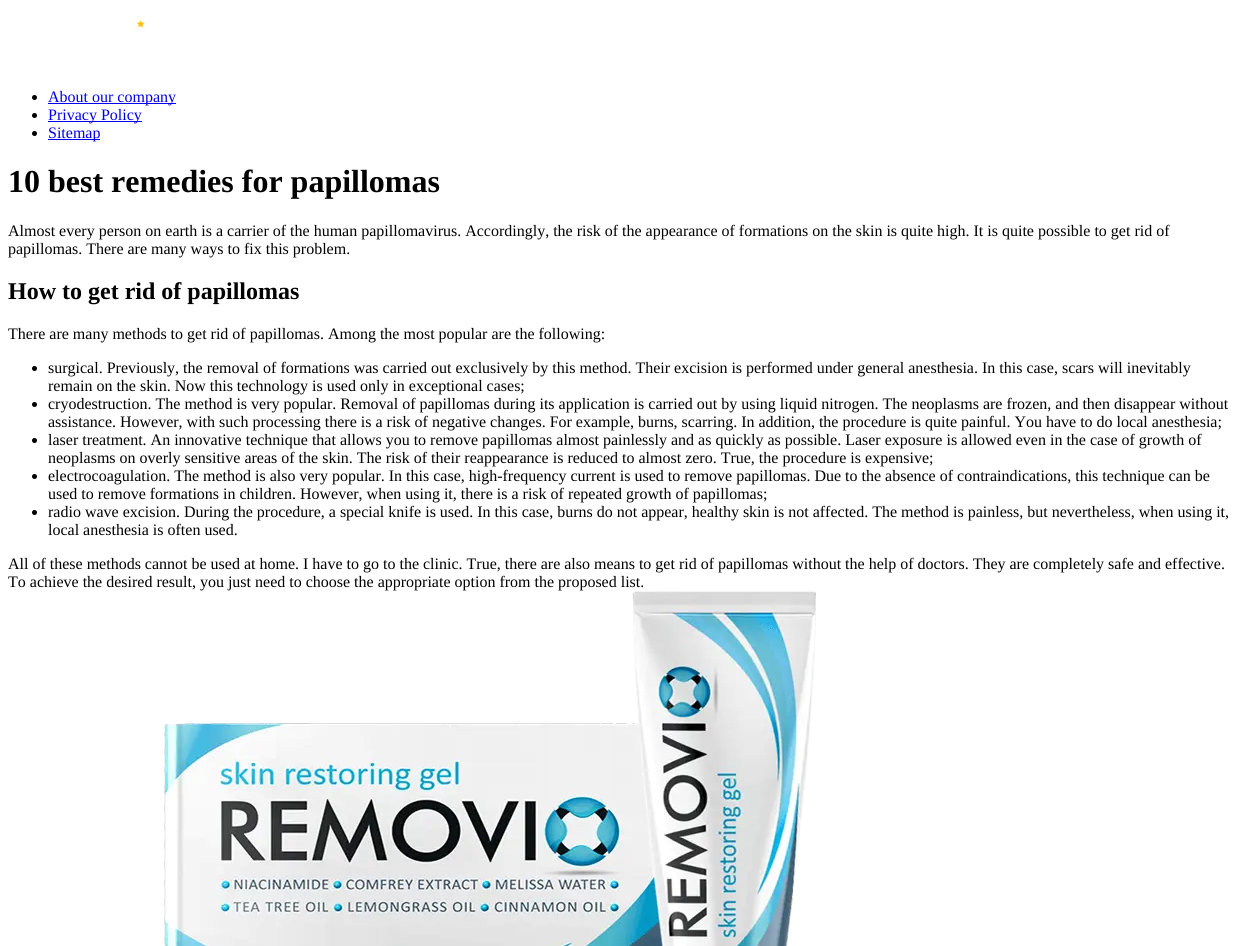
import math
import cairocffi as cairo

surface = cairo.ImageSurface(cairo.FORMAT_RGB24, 1241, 946)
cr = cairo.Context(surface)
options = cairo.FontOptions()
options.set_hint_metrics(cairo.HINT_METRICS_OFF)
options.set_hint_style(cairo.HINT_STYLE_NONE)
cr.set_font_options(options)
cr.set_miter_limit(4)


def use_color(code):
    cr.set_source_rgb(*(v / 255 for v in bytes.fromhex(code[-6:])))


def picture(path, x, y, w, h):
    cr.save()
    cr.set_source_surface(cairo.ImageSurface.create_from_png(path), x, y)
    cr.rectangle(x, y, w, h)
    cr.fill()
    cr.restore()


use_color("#ffffff")
cr.paint()
picture("img1.png", 136, 20, 9, 8)
use_color("#000000")
cr.arc(34.5, 97.5, 2.5, 0, 2 * math.pi)
cr.fill()
use_color("#0000ee")
cr.rectangle(48, 103, 128, 1)
cr.fill()
cr.select_font_face("Liberation Serif")
cr.set_font_size(16)
cr.move_to(48, 102)
cr.show_text("About our company")
use_color("#000000")
cr.new_path()
cr.arc(34.5, 115.5, 2.5, 0, 2 * math.pi)
cr.fill()
use_color("#0000ee")
cr.rectangle(48, 121, 94, 1)
cr.fill()
cr.move_to(48, 120)
cr.show_text("Privacy Policy")
use_color("#000000")
cr.new_path()
cr.arc(34.5, 133.5, 2.5, 0, 2 * math.pi)
cr.fill()
use_color("#0000ee")
cr.rectangle(48, 139, 52, 1)
cr.fill()
cr.move_to(48, 138)
cr.show_text("Sitemap")
cr.select_font_face("Liberation Serif", cairo.FONT_SLANT_NORMAL, cairo.FONT_WEIGHT_BOLD)
cr.set_font_size(32)
use_color("#000000")
cr.move_to(8, 192)
cr.show_text("10 best remedies for papillomas")
cr.select_font_face("Liberation Serif")
cr.set_font_size(16)
cr.move_to(8, 236)
cr.show_text("Almost every person on earth is a carrier of the human papillomavirus. Accordingly, the risk of the appearance of formations on the skin is quite high. It is quite possible to get rid of")
cr.move_to(8, 254)
cr.show_text("papillomas. There are many ways to fix this problem.")
cr.select_font_face("Liberation Serif", cairo.FONT_SLANT_NORMAL, cairo.FONT_WEIGHT_BOLD)
cr.set_font_size(24)
cr.move_to(8, 299)
cr.show_text("How to get rid of papillomas")
cr.select_font_face("Liberation Serif")
cr.set_font_size(16)
cr.move_to(8, 339)
cr.show_text("There are many methods to get rid of papillomas. Among the most popular are the following:")
cr.new_path()
cr.arc(34.5, 368.5, 2.5, 0, 2 * math.pi)
cr.fill()
cr.move_to(48, 373)
cr.show_text("surgical. Previously, the removal of formations was carried out exclusively by this method. Their excision is performed under general anesthesia. In this case, scars will inevitably")
cr.move_to(48, 391)
cr.show_text("remain on the skin. Now this technology is used only in exceptional cases;")
cr.new_path()
cr.arc(34.5, 404.5, 2.5, 0, 2 * math.pi)
cr.fill()
cr.move_to(48, 409)
cr.show_text("cryodestruction. The method is very popular. Removal of papillomas during its application is carried out by using liquid nitrogen. The neoplasms are frozen, and then disappear without")
cr.move_to(48, 427)
cr.show_text("assistance. However, with such processing there is a risk of negative changes. For example, burns, scarring. In addition, the procedure is quite painful. You have to do local anesthesia;")
cr.new_path()
cr.arc(34.5, 440.5, 2.5, 0, 2 * math.pi)
cr.fill()
cr.move_to(48, 445)
cr.show_text("laser treatment. An innovative technique that allows you to remove papillomas almost painlessly and as quickly as possible. Laser exposure is allowed even in the case of growth of")
cr.move_to(48, 463)
cr.show_text("neoplasms on overly sensitive areas of the skin. The risk of their reappearance is reduced to almost zero. True, the procedure is expensive;")
cr.new_path()
cr.arc(34.5, 476.5, 2.5, 0, 2 * math.pi)
cr.fill()
cr.move_to(48, 481)
cr.show_text("electrocoagulation. The method is also very popular. In this case, high-frequency current is used to remove papillomas. Due to the absence of contraindications, this technique can be")
cr.move_to(48, 499)
cr.show_text("used to remove formations in children. However, when using it, there is a risk of repeated growth of papillomas;")
cr.new_path()
cr.arc(34.5, 512.5, 2.5, 0, 2 * math.pi)
cr.fill()
cr.move_to(48, 517)
cr.show_text("radio wave excision. During the procedure, a special knife is used. In this case, burns do not appear, healthy skin is not affected. The method is painless, but nevertheless, when using it,")
cr.move_to(48, 535)
cr.show_text("local anesthesia is often used.")
cr.move_to(8, 569)
cr.show_text("All of these methods cannot be used at home. I have to go to the clinic. True, there are also means to get rid of papillomas without the help of doctors. They are completely safe and effective.")
cr.move_to(8, 587)
cr.show_text("To achieve the desired result, you just need to choose the appropriate option from the proposed list.")
picture("img2.png", 164, 591, 652, 355)
surface.write_to_png("result.png")
